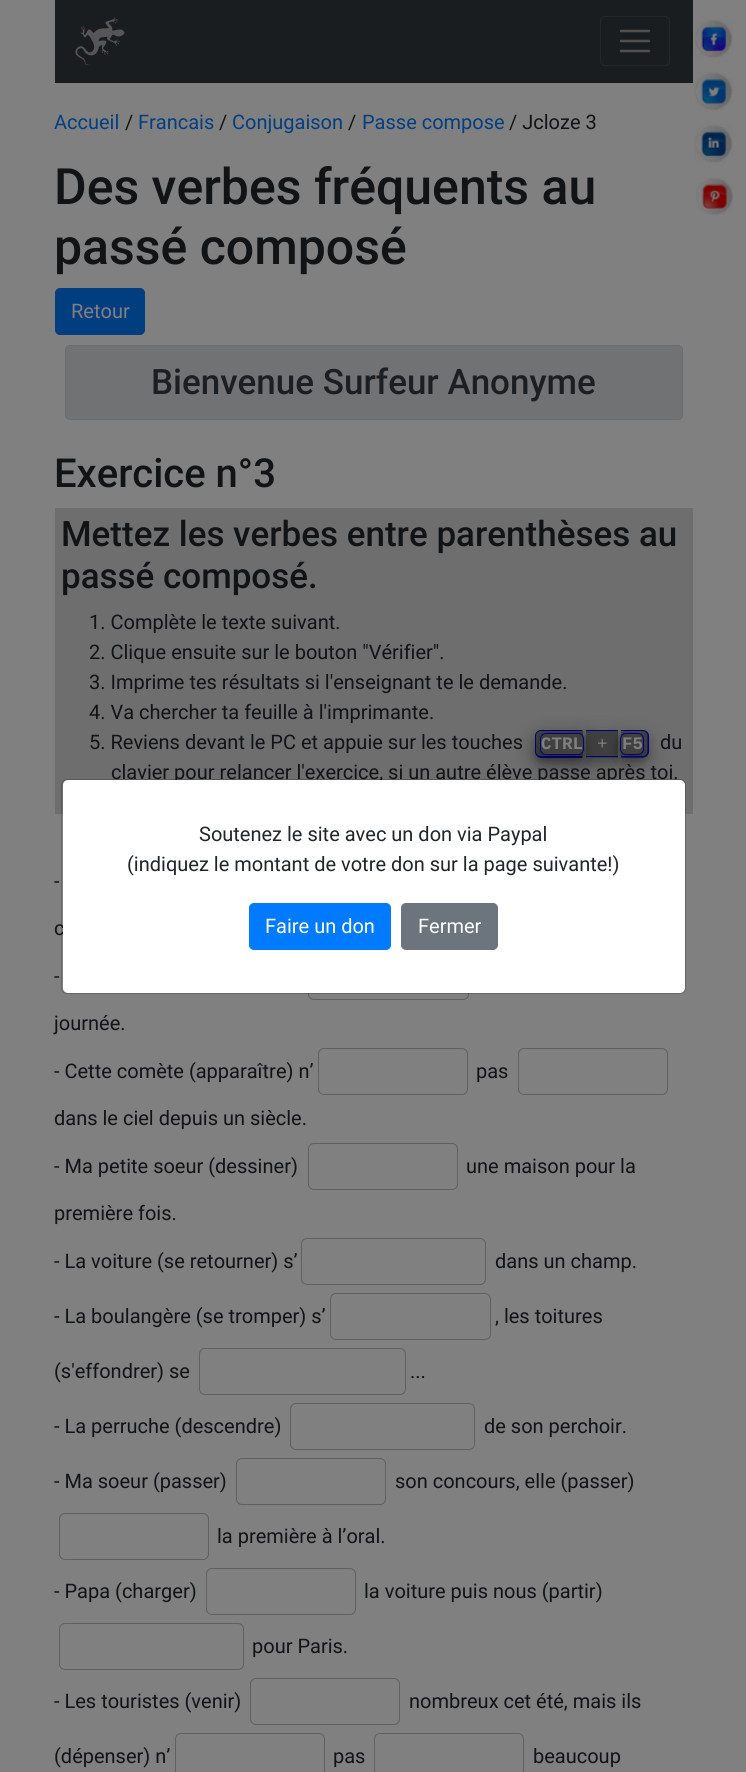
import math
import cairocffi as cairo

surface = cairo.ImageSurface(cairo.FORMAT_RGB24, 746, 1772)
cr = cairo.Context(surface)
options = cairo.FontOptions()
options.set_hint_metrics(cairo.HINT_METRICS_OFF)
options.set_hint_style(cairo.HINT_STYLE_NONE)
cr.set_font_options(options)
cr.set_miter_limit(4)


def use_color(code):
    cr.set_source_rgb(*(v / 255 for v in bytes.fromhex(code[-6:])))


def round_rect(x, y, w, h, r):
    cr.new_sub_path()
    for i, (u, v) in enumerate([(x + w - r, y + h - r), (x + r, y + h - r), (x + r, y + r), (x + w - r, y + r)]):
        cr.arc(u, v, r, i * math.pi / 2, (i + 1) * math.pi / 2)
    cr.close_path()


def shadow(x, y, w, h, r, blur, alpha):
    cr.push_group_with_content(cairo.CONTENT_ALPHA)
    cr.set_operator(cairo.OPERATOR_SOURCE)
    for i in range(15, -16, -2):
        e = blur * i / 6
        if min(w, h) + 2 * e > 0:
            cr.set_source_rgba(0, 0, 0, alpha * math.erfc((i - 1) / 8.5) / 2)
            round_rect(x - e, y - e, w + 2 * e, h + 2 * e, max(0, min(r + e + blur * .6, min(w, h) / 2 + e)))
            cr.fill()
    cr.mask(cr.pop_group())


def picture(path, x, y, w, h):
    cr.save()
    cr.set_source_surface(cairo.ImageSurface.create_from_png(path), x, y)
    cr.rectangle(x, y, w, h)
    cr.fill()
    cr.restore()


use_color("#808080")
cr.paint()
use_color("#1a1d20")
cr.rectangle(55, 0, 638, 83)
cr.fill()
picture("img1.png", 75, 17, 50, 49)
round_rect(600.5, 16.5, 69, 49, 4.5)
use_color("#24272a")
cr.set_line_width(1)
cr.stroke()
cr.new_path()
cr.move_to(621, 31)
cr.line_to(649, 31)
cr.move_to(621, 41)
cr.line_to(649, 41)
cr.move_to(621, 51)
cr.line_to(649, 51)
use_color("#4d4f50")
cr.set_line_width(2.5)
cr.set_line_cap(cairo.LINE_CAP_ROUND)
cr.stroke()
picture("img2.png", 695, 19, 38, 39)
picture("img3.png", 695, 72, 38, 38)
picture("img4.png", 695, 124, 38, 39)
picture("img5.png", 696, 177, 37, 38)
cr.select_font_face("Roboto")
cr.set_font_size(20)
use_color("#003e80")
cr.move_to(54, 129)
cr.show_text("Accueil")
use_color("#111315")
cr.move_to(125, 129)
cr.show_text("/")
use_color("#003e80")
cr.move_to(138, 129)
cr.show_text("Francais")
use_color("#111315")
cr.move_to(219, 129)
cr.show_text("/")
use_color("#003e80")
cr.move_to(232, 129)
cr.show_text("Conjugaison")
use_color("#111315")
cr.move_to(348, 129)
cr.show_text("/")
use_color("#003e80")
cr.move_to(362, 129)
cr.show_text("Passe compose")
use_color("#111315")
cr.move_to(509, 129)
cr.show_text("/ Jcloze 3")
cr.select_font_face("Roboto Medium")
cr.set_font_size(50)
cr.move_to(54, 204)
cr.show_text("Des verbes fréquents au")
cr.move_to(54, 264)
cr.show_text("passé composé")
use_color("#003e80")
round_rect(55.5, 288.5, 89, 46, 4.5)
cr.fill_preserve()
cr.set_line_width(1)
cr.set_line_cap(cairo.LINE_CAP_BUTT)
cr.stroke()
cr.select_font_face("Roboto")
cr.set_font_size(20)
use_color("#808080")
cr.move_to(71, 318)
cr.show_text("Retour")
use_color("#717273")
round_rect(65.5, 345.5, 617, 74, 4.5)
cr.fill_preserve()
use_color("#6b6c6e")
cr.stroke()
cr.select_font_face("Roboto Medium")
cr.set_font_size(35)
use_color("#1c1f21")
cr.move_to(151, 394)
cr.show_text("Bienvenue Surfeur Anonyme")
cr.set_font_size(40)
use_color("#111315")
cr.move_to(54, 487)
cr.show_text("Exercice n°3")
use_color("#6e6e6e")
cr.rectangle(55, 508, 638, 306)
cr.fill()
cr.set_font_size(35)
use_color("#111315")
cr.move_to(61, 546)
cr.show_text("Mettez les verbes entre parenthèses au")
cr.move_to(61, 588)
cr.show_text("passé composé.")
cr.select_font_face("Roboto")
cr.set_font_size(20)
cr.move_to(89, 629)
cr.show_text("1. Complète le texte suivant.")
cr.move_to(89, 659)
cr.show_text("2. Clique ensuite sur le bouton \"Vérifier\".")
cr.move_to(89, 689)
cr.show_text("3. Imprime tes résultats si l'enseignant te le demande.")
cr.move_to(89, 719)
cr.show_text("4. Va chercher ta feuille à l'imprimante.")
cr.move_to(89, 749)
cr.show_text("5. Reviens devant le PC et appuie sur les touches")
use_color("#000000")
shadow(535, 738, 48, 27, 6, 12.5, 0.19)
shadow(535, 735, 48, 28, 6, 5, 0.2)
use_color("#404040")
cr.new_path()
cr.move_to(541, 730)
cr.line_to(583, 730)
cr.line_to(583, 758)
cr.line_to(541, 758)
cr.curve_to(537.5, 758, 535, 755.5, 535, 752)
cr.line_to(535, 736)
cr.curve_to(535, 732.5, 537.5, 730, 541, 730)
cr.close_path()
cr.fill()
use_color("#000080")
cr.set_fill_rule(cairo.FILL_RULE_EVEN_ODD)
cr.new_path()
cr.move_to(541, 730)
cr.line_to(582, 730)
cr.line_to(582, 758)
cr.line_to(541, 758)
cr.curve_to(538, 758, 535, 755, 535, 751)
cr.line_to(535, 736)
cr.curve_to(535, 733, 538, 730, 541, 730)
cr.close_path()
cr.move_to(541, 731)
cr.line_to(582, 731)
cr.line_to(582, 756)
cr.line_to(541, 756)
cr.curve_to(538, 756, 536, 754, 536, 751)
cr.line_to(536, 736)
cr.curve_to(536, 733, 538, 731, 541, 731)
cr.close_path()
cr.fill()
use_color("#000000")
shadow(586, 738, 32, 27, 0, 12.5, 0.19)
shadow(586, 735, 32, 28, 0, 5, 0.2)
use_color("#404040")
cr.rectangle(586, 731, 32, 27)
cr.fill()
use_color("#000080")
cr.rectangle(586, 730, 32, 1)
cr.fill()
cr.rectangle(586, 756, 32, 1)
cr.fill()
use_color("#000000")
shadow(621, 738, 28, 27, 6, 12.5, 0.19)
shadow(621, 735, 28, 28, 6, 5, 0.2)
use_color("#404040")
cr.new_path()
cr.move_to(621, 730)
cr.line_to(643, 730)
cr.curve_to(646.5, 730, 649, 732.5, 649, 736)
cr.line_to(649, 752)
cr.curve_to(649, 755.5, 646.5, 758, 643, 758)
cr.line_to(621, 758)
cr.close_path()
cr.fill()
use_color("#000080")
cr.new_path()
cr.move_to(621, 730)
cr.line_to(642.5, 730)
cr.curve_to(646, 730, 649, 733, 649, 736)
cr.line_to(649, 751)
cr.curve_to(649, 754.5, 646, 757.5, 642.5, 757.5)
cr.line_to(621, 757.5)
cr.close_path()
cr.move_to(621, 731)
cr.line_to(642.5, 731)
cr.curve_to(645.5, 731, 647.5, 733.5, 647.5, 736)
cr.line_to(647.5, 751)
cr.curve_to(647.5, 754, 645.5, 756, 642.5, 756)
cr.line_to(621, 756)
cr.close_path()
cr.fill()
use_color("#000000")
shadow(540, 740, 44, 23, 6, 12.5, 0.19)
shadow(540, 738, 44, 22, 6, 5, 0.2)
use_color("#404040")
round_rect(540.5, 733.5, 43, 21, 5.5)
cr.fill_preserve()
use_color("#000080")
cr.stroke()
cr.select_font_face("Liberation Mono", cairo.FONT_SLANT_NORMAL, cairo.FONT_WEIGHT_BOLD)
cr.set_font_size(17.5)
use_color("#808080")
cr.move_to(541, 749)
cr.show_text("CTRL")
cr.select_font_face("Liberation Mono")
cr.move_to(597, 749)
cr.show_text("+")
use_color("#000000")
shadow(620, 738, 24, 22, 6, 5, 0.2)
use_color("#404040")
round_rect(620.5, 733.5, 23, 21, 5.5)
cr.fill_preserve()
use_color("#000080")
cr.stroke()
cr.select_font_face("Liberation Mono", cairo.FONT_SLANT_NORMAL, cairo.FONT_WEIGHT_BOLD)
use_color("#808080")
cr.move_to(622, 749)
cr.show_text("F5")
cr.select_font_face("Roboto")
cr.set_font_size(20)
use_color("#111315")
cr.move_to(660, 749)
cr.show_text("du")
cr.move_to(111, 779)
cr.show_text("clavier pour relancer l'exercice, si un autre élève passe après toi.")
cr.move_to(54, 888)
cr.show_text("-")
cr.move_to(54, 935)
cr.show_text("c")
cr.move_to(54, 983)
cr.show_text("-")
round_rect(308.5, 953.5, 160, 46, 5.5)
use_color("#606060")
cr.stroke()
use_color("#111315")
cr.move_to(54, 1030)
cr.show_text("journée.")
cr.move_to(54, 1078)
cr.show_text("- Cette comète (apparaître) n’")
round_rect(318.5, 1048.5, 149, 46, 5.5)
use_color("#606060")
cr.stroke()
use_color("#111315")
cr.move_to(476, 1078)
cr.show_text("pas")
round_rect(518.5, 1048.5, 149, 46, 5.5)
use_color("#606060")
cr.stroke()
use_color("#111315")
cr.move_to(54, 1125)
cr.show_text("dans le ciel depuis un siècle.")
cr.move_to(54, 1173)
cr.show_text("- Ma petite soeur (dessiner)")
round_rect(308.5, 1143.5, 149, 46, 5.5)
use_color("#606060")
cr.stroke()
use_color("#111315")
cr.move_to(466, 1173)
cr.show_text("une maison pour la")
cr.move_to(54, 1220)
cr.show_text("première fois.")
cr.move_to(54, 1268)
cr.show_text("- La voiture (se retourner) s’")
round_rect(301.5, 1238.5, 184, 46, 5.5)
use_color("#606060")
cr.stroke()
use_color("#111315")
cr.move_to(495, 1268)
cr.show_text("dans un champ.")
cr.move_to(54, 1323)
cr.show_text("- La boulangère (se tromper) s’")
round_rect(330.5, 1293.5, 160, 46, 5.5)
use_color("#606060")
cr.stroke()
use_color("#111315")
cr.move_to(495, 1323)
cr.show_text(", les toitures")
cr.move_to(54, 1378)
cr.show_text("(s'effondrer) se")
round_rect(199.5, 1348.5, 206, 46, 5.5)
use_color("#606060")
cr.stroke()
use_color("#111315")
cr.move_to(410, 1378)
cr.show_text("...")
cr.move_to(54, 1433)
cr.show_text("- La perruche (descendre)")
round_rect(290.5, 1403.5, 184, 46, 5.5)
use_color("#606060")
cr.stroke()
use_color("#111315")
cr.move_to(484, 1433)
cr.show_text("de son perchoir.")
cr.move_to(54, 1488)
cr.show_text("- Ma soeur (passer)")
round_rect(236.5, 1458.5, 149, 46, 5.5)
use_color("#606060")
cr.stroke()
use_color("#111315")
cr.move_to(395, 1488)
cr.show_text("son concours, elle (passer)")
round_rect(59.5, 1513.5, 149, 46, 5.5)
use_color("#606060")
cr.stroke()
use_color("#111315")
cr.move_to(217, 1543)
cr.show_text("la première à l’oral.")
cr.move_to(54, 1598)
cr.show_text("- Papa (charger)")
round_rect(206.5, 1568.5, 149, 46, 5.5)
use_color("#606060")
cr.stroke()
use_color("#111315")
cr.move_to(364, 1598)
cr.show_text("la voiture puis nous (partir)")
round_rect(59.5, 1623.5, 184, 46, 5.5)
use_color("#606060")
cr.stroke()
use_color("#111315")
cr.move_to(252, 1653)
cr.show_text("pour Paris.")
cr.move_to(54, 1708)
cr.show_text("- Les touristes (venir)")
round_rect(250.5, 1678.5, 149, 46, 5.5)
use_color("#606060")
cr.stroke()
use_color("#111315")
cr.move_to(409, 1708)
cr.show_text("nombreux cet été, mais ils")
cr.move_to(54, 1763)
cr.show_text("(dépenser) n’")
round_rect(175.5, 1733.5, 149, 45, 5.5)
use_color("#606060")
cr.stroke()
use_color("#111315")
cr.move_to(333, 1763)
cr.show_text("pas")
round_rect(374.5, 1733.5, 149, 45, 5.5)
use_color("#606060")
cr.stroke()
use_color("#111315")
cr.move_to(533, 1763)
cr.show_text("beaucoup")
use_color("#ffffff")
round_rect(63, 780, 622, 213, 5)
cr.fill()
round_rect(61.5, 779.5, 624, 214, 5.5)
cr.set_source_rgba(0, 0, 0, 0.2)
cr.stroke()
use_color("#212529")
cr.move_to(199, 841)
cr.show_text("Soutenez le site avec un don via Paypal")
cr.move_to(127, 871)
cr.show_text("(indiquez le montant de votre don sur la page suivante!)")
use_color("#007bff")
round_rect(249.5, 903.5, 141, 46, 4.5)
cr.fill_preserve()
cr.stroke()
use_color("#ffffff")
cr.move_to(265, 933)
cr.show_text("Faire un don")
use_color("#6c757d")
round_rect(401.5, 903.5, 96, 46, 4.5)
cr.fill_preserve()
cr.stroke()
use_color("#ffffff")
cr.move_to(418, 933)
cr.show_text("Fermer")
surface.write_to_png("result.png")
